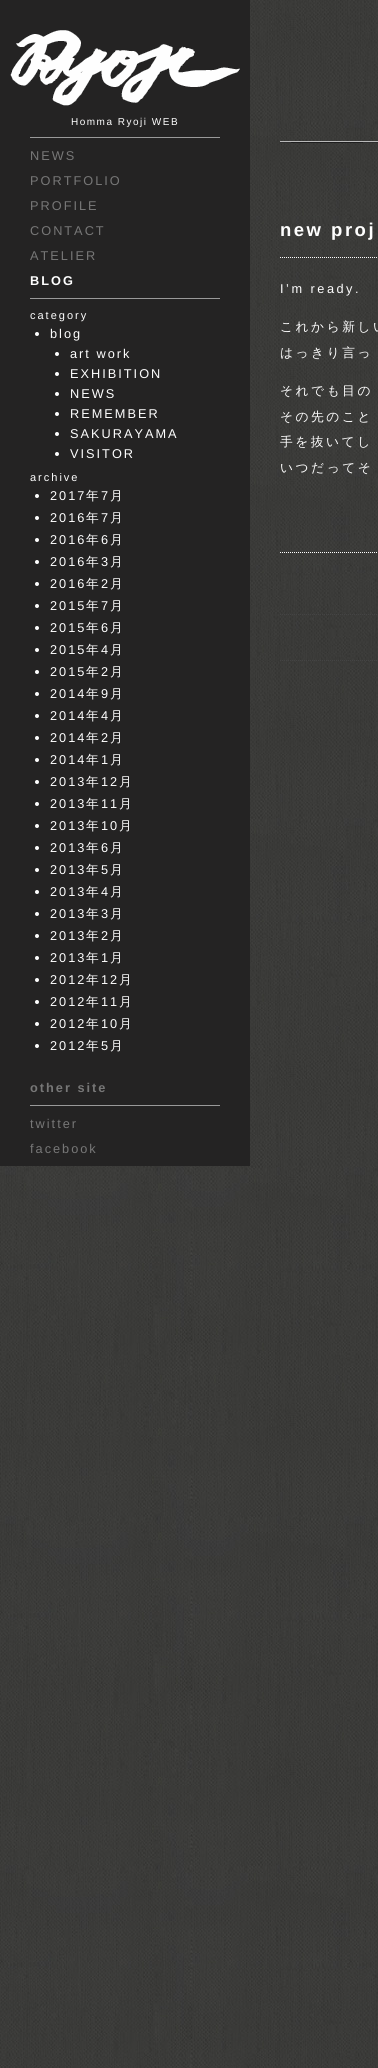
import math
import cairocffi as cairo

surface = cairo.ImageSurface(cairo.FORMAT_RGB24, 378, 2068)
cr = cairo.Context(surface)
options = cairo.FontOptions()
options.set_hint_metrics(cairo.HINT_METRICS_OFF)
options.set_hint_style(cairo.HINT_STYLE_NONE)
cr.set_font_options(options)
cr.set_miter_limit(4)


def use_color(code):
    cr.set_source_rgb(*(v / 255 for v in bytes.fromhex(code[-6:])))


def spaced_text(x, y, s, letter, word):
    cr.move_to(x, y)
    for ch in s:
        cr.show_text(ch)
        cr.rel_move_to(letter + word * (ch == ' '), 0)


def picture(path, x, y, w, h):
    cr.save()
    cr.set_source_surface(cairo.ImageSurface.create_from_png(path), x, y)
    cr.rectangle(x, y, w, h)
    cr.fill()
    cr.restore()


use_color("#ffffff")
cr.paint()
picture("img1.png", 0, 0, 378, 2068)
use_color("#242323")
cr.rectangle(0, 0, 250, 1166)
cr.fill()
picture("img2.png", 10, 30, 230, 76)
cr.select_font_face("Liberation Sans")
cr.set_font_size(10)
use_color("#fefefe")
spaced_text(71, 125, "Homma Ryoji WEB", 1.5, 0)
use_color("#999999")
cr.rectangle(30, 137, 190, 1)
cr.fill()
cr.set_font_size(12.75)
use_color("#777777")
spaced_text(30, 160, "NEWS", 2, 0)
spaced_text(30, 185, "PORTFOLIO", 2, 0)
spaced_text(30, 210, "PROFILE", 2, 0)
spaced_text(30, 235, "CONTACT", 2, 0)
spaced_text(30, 260, "ATELIER", 2, 0)
cr.select_font_face("Liberation Sans", cairo.FONT_SLANT_NORMAL, cairo.FONT_WEIGHT_BOLD)
use_color("#fefefe")
spaced_text(30, 285, "BLOG", 2, 0)
use_color("#999999")
cr.rectangle(30, 298, 190, 1)
cr.fill()
cr.select_font_face("Liberation Sans")
cr.set_font_size(11)
use_color("#fefefe")
spaced_text(30, 319, "category", 2, 0)
cr.new_path()
cr.arc(37, 334, 2, 0, 2 * math.pi)
cr.fill()
cr.set_font_size(12.75)
spaced_text(50, 338, "blog", 2, 0)
cr.new_path()
cr.arc(57, 354, 2, 0, 2 * math.pi)
cr.fill()
spaced_text(70, 358, "art work", 2, 0)
cr.new_path()
cr.arc(57, 374, 2, 0, 2 * math.pi)
cr.fill()
spaced_text(70, 378, "EXHIBITION", 2, 0)
cr.new_path()
cr.arc(57, 394, 2, 0, 2 * math.pi)
cr.fill()
spaced_text(70, 398, "NEWS", 2, 0)
cr.new_path()
cr.arc(57, 414, 2, 0, 2 * math.pi)
cr.fill()
spaced_text(70, 418, "REMEMBER", 2, 0)
cr.new_path()
cr.arc(57, 434, 2, 0, 2 * math.pi)
cr.fill()
spaced_text(70, 438, "SAKURAYAMA", 2, 0)
cr.new_path()
cr.arc(57, 454, 2, 0, 2 * math.pi)
cr.fill()
spaced_text(70, 458, "VISITOR", 2, 0)
cr.set_font_size(11)
spaced_text(30, 481, "archive", 2, 0)
cr.new_path()
cr.arc(37, 496, 2, 0, 2 * math.pi)
cr.fill()
cr.set_font_size(12.75)
spaced_text(50, 500, "2017", 2, 0)
cr.select_font_face("WenQuanYi Zen Hei Medium")
spaced_text(86, 500, "年", 2, 0)
cr.select_font_face("Liberation Sans")
spaced_text(101, 500, "7", 2, 0)
cr.select_font_face("WenQuanYi Zen Hei Medium")
spaced_text(110, 500, "月", 2, 0)
cr.new_path()
cr.arc(37, 518, 2, 0, 2 * math.pi)
cr.fill()
cr.select_font_face("Liberation Sans")
spaced_text(50, 522, "2016", 2, 0)
cr.select_font_face("WenQuanYi Zen Hei Medium")
spaced_text(86, 522, "年", 2, 0)
cr.select_font_face("Liberation Sans")
spaced_text(101, 522, "7", 2, 0)
cr.select_font_face("WenQuanYi Zen Hei Medium")
spaced_text(110, 522, "月", 2, 0)
cr.new_path()
cr.arc(37, 540, 2, 0, 2 * math.pi)
cr.fill()
cr.select_font_face("Liberation Sans")
spaced_text(50, 544, "2016", 2, 0)
cr.select_font_face("WenQuanYi Zen Hei Medium")
spaced_text(86, 544, "年", 2, 0)
cr.select_font_face("Liberation Sans")
spaced_text(101, 544, "6", 2, 0)
cr.select_font_face("WenQuanYi Zen Hei Medium")
spaced_text(110, 544, "月", 2, 0)
cr.new_path()
cr.arc(37, 562, 2, 0, 2 * math.pi)
cr.fill()
cr.select_font_face("Liberation Sans")
spaced_text(50, 566, "2016", 2, 0)
cr.select_font_face("WenQuanYi Zen Hei Medium")
spaced_text(86, 566, "年", 2, 0)
cr.select_font_face("Liberation Sans")
spaced_text(101, 566, "3", 2, 0)
cr.select_font_face("WenQuanYi Zen Hei Medium")
spaced_text(110, 566, "月", 2, 0)
cr.new_path()
cr.arc(37, 584, 2, 0, 2 * math.pi)
cr.fill()
cr.select_font_face("Liberation Sans")
spaced_text(50, 588, "2016", 2, 0)
cr.select_font_face("WenQuanYi Zen Hei Medium")
spaced_text(86, 588, "年", 2, 0)
cr.select_font_face("Liberation Sans")
spaced_text(101, 588, "2", 2, 0)
cr.select_font_face("WenQuanYi Zen Hei Medium")
spaced_text(110, 588, "月", 2, 0)
cr.new_path()
cr.arc(37, 606, 2, 0, 2 * math.pi)
cr.fill()
cr.select_font_face("Liberation Sans")
spaced_text(50, 610, "2015", 2, 0)
cr.select_font_face("WenQuanYi Zen Hei Medium")
spaced_text(86, 610, "年", 2, 0)
cr.select_font_face("Liberation Sans")
spaced_text(101, 610, "7", 2, 0)
cr.select_font_face("WenQuanYi Zen Hei Medium")
spaced_text(110, 610, "月", 2, 0)
cr.new_path()
cr.arc(37, 628, 2, 0, 2 * math.pi)
cr.fill()
cr.select_font_face("Liberation Sans")
spaced_text(50, 632, "2015", 2, 0)
cr.select_font_face("WenQuanYi Zen Hei Medium")
spaced_text(86, 632, "年", 2, 0)
cr.select_font_face("Liberation Sans")
spaced_text(101, 632, "6", 2, 0)
cr.select_font_face("WenQuanYi Zen Hei Medium")
spaced_text(110, 632, "月", 2, 0)
cr.new_path()
cr.arc(37, 650, 2, 0, 2 * math.pi)
cr.fill()
cr.select_font_face("Liberation Sans")
spaced_text(50, 654, "2015", 2, 0)
cr.select_font_face("WenQuanYi Zen Hei Medium")
spaced_text(86, 654, "年", 2, 0)
cr.select_font_face("Liberation Sans")
spaced_text(101, 654, "4", 2, 0)
cr.select_font_face("WenQuanYi Zen Hei Medium")
spaced_text(110, 654, "月", 2, 0)
cr.new_path()
cr.arc(37, 672, 2, 0, 2 * math.pi)
cr.fill()
cr.select_font_face("Liberation Sans")
spaced_text(50, 676, "2015", 2, 0)
cr.select_font_face("WenQuanYi Zen Hei Medium")
spaced_text(86, 676, "年", 2, 0)
cr.select_font_face("Liberation Sans")
spaced_text(101, 676, "2", 2, 0)
cr.select_font_face("WenQuanYi Zen Hei Medium")
spaced_text(110, 676, "月", 2, 0)
cr.new_path()
cr.arc(37, 694, 2, 0, 2 * math.pi)
cr.fill()
cr.select_font_face("Liberation Sans")
spaced_text(50, 698, "2014", 2, 0)
cr.select_font_face("WenQuanYi Zen Hei Medium")
spaced_text(86, 698, "年", 2, 0)
cr.select_font_face("Liberation Sans")
spaced_text(101, 698, "9", 2, 0)
cr.select_font_face("WenQuanYi Zen Hei Medium")
spaced_text(110, 698, "月", 2, 0)
cr.new_path()
cr.arc(37, 716, 2, 0, 2 * math.pi)
cr.fill()
cr.select_font_face("Liberation Sans")
spaced_text(50, 720, "2014", 2, 0)
cr.select_font_face("WenQuanYi Zen Hei Medium")
spaced_text(86, 720, "年", 2, 0)
cr.select_font_face("Liberation Sans")
spaced_text(101, 720, "4", 2, 0)
cr.select_font_face("WenQuanYi Zen Hei Medium")
spaced_text(110, 720, "月", 2, 0)
cr.new_path()
cr.arc(37, 738, 2, 0, 2 * math.pi)
cr.fill()
cr.select_font_face("Liberation Sans")
spaced_text(50, 742, "2014", 2, 0)
cr.select_font_face("WenQuanYi Zen Hei Medium")
spaced_text(86, 742, "年", 2, 0)
cr.select_font_face("Liberation Sans")
spaced_text(101, 742, "2", 2, 0)
cr.select_font_face("WenQuanYi Zen Hei Medium")
spaced_text(110, 742, "月", 2, 0)
cr.new_path()
cr.arc(37, 760, 2, 0, 2 * math.pi)
cr.fill()
cr.select_font_face("Liberation Sans")
spaced_text(50, 764, "2014", 2, 0)
cr.select_font_face("WenQuanYi Zen Hei Medium")
spaced_text(86, 764, "年", 2, 0)
cr.select_font_face("Liberation Sans")
spaced_text(101, 764, "1", 2, 0)
cr.select_font_face("WenQuanYi Zen Hei Medium")
spaced_text(110, 764, "月", 2, 0)
cr.new_path()
cr.arc(37, 782, 2, 0, 2 * math.pi)
cr.fill()
cr.select_font_face("Liberation Sans")
spaced_text(50, 786, "2013", 2, 0)
cr.select_font_face("WenQuanYi Zen Hei Medium")
spaced_text(86, 786, "年", 2, 0)
cr.select_font_face("Liberation Sans")
spaced_text(101, 786, "12", 2, 0)
cr.select_font_face("WenQuanYi Zen Hei Medium")
spaced_text(119, 786, "月", 2, 0)
cr.new_path()
cr.arc(37, 804, 2, 0, 2 * math.pi)
cr.fill()
cr.select_font_face("Liberation Sans")
spaced_text(50, 808, "2013", 2, 0)
cr.select_font_face("WenQuanYi Zen Hei Medium")
spaced_text(86, 808, "年", 2, 0)
cr.select_font_face("Liberation Sans")
spaced_text(101, 808, "11", 2, 0)
cr.select_font_face("WenQuanYi Zen Hei Medium")
spaced_text(119, 808, "月", 2, 0)
cr.new_path()
cr.arc(37, 826, 2, 0, 2 * math.pi)
cr.fill()
cr.select_font_face("Liberation Sans")
spaced_text(50, 830, "2013", 2, 0)
cr.select_font_face("WenQuanYi Zen Hei Medium")
spaced_text(86, 830, "年", 2, 0)
cr.select_font_face("Liberation Sans")
spaced_text(101, 830, "10", 2, 0)
cr.select_font_face("WenQuanYi Zen Hei Medium")
spaced_text(119, 830, "月", 2, 0)
cr.new_path()
cr.arc(37, 848, 2, 0, 2 * math.pi)
cr.fill()
cr.select_font_face("Liberation Sans")
spaced_text(50, 852, "2013", 2, 0)
cr.select_font_face("WenQuanYi Zen Hei Medium")
spaced_text(86, 852, "年", 2, 0)
cr.select_font_face("Liberation Sans")
spaced_text(101, 852, "6", 2, 0)
cr.select_font_face("WenQuanYi Zen Hei Medium")
spaced_text(110, 852, "月", 2, 0)
cr.new_path()
cr.arc(37, 870, 2, 0, 2 * math.pi)
cr.fill()
cr.select_font_face("Liberation Sans")
spaced_text(50, 874, "2013", 2, 0)
cr.select_font_face("WenQuanYi Zen Hei Medium")
spaced_text(86, 874, "年", 2, 0)
cr.select_font_face("Liberation Sans")
spaced_text(101, 874, "5", 2, 0)
cr.select_font_face("WenQuanYi Zen Hei Medium")
spaced_text(110, 874, "月", 2, 0)
cr.new_path()
cr.arc(37, 892, 2, 0, 2 * math.pi)
cr.fill()
cr.select_font_face("Liberation Sans")
spaced_text(50, 896, "2013", 2, 0)
cr.select_font_face("WenQuanYi Zen Hei Medium")
spaced_text(86, 896, "年", 2, 0)
cr.select_font_face("Liberation Sans")
spaced_text(101, 896, "4", 2, 0)
cr.select_font_face("WenQuanYi Zen Hei Medium")
spaced_text(110, 896, "月", 2, 0)
cr.new_path()
cr.arc(37, 914, 2, 0, 2 * math.pi)
cr.fill()
cr.select_font_face("Liberation Sans")
spaced_text(50, 918, "2013", 2, 0)
cr.select_font_face("WenQuanYi Zen Hei Medium")
spaced_text(86, 918, "年", 2, 0)
cr.select_font_face("Liberation Sans")
spaced_text(101, 918, "3", 2, 0)
cr.select_font_face("WenQuanYi Zen Hei Medium")
spaced_text(110, 918, "月", 2, 0)
cr.new_path()
cr.arc(37, 936, 2, 0, 2 * math.pi)
cr.fill()
cr.select_font_face("Liberation Sans")
spaced_text(50, 940, "2013", 2, 0)
cr.select_font_face("WenQuanYi Zen Hei Medium")
spaced_text(86, 940, "年", 2, 0)
cr.select_font_face("Liberation Sans")
spaced_text(101, 940, "2", 2, 0)
cr.select_font_face("WenQuanYi Zen Hei Medium")
spaced_text(110, 940, "月", 2, 0)
cr.new_path()
cr.arc(37, 958, 2, 0, 2 * math.pi)
cr.fill()
cr.select_font_face("Liberation Sans")
spaced_text(50, 962, "2013", 2, 0)
cr.select_font_face("WenQuanYi Zen Hei Medium")
spaced_text(86, 962, "年", 2, 0)
cr.select_font_face("Liberation Sans")
spaced_text(101, 962, "1", 2, 0)
cr.select_font_face("WenQuanYi Zen Hei Medium")
spaced_text(110, 962, "月", 2, 0)
cr.new_path()
cr.arc(37, 980, 2, 0, 2 * math.pi)
cr.fill()
cr.select_font_face("Liberation Sans")
spaced_text(50, 984, "2012", 2, 0)
cr.select_font_face("WenQuanYi Zen Hei Medium")
spaced_text(86, 984, "年", 2, 0)
cr.select_font_face("Liberation Sans")
spaced_text(101, 984, "12", 2, 0)
cr.select_font_face("WenQuanYi Zen Hei Medium")
spaced_text(119, 984, "月", 2, 0)
cr.new_path()
cr.arc(37, 1002, 2, 0, 2 * math.pi)
cr.fill()
cr.select_font_face("Liberation Sans")
spaced_text(50, 1006, "2012", 2, 0)
cr.select_font_face("WenQuanYi Zen Hei Medium")
spaced_text(86, 1006, "年", 2, 0)
cr.select_font_face("Liberation Sans")
spaced_text(101, 1006, "11", 2, 0)
cr.select_font_face("WenQuanYi Zen Hei Medium")
spaced_text(119, 1006, "月", 2, 0)
cr.new_path()
cr.arc(37, 1024, 2, 0, 2 * math.pi)
cr.fill()
cr.select_font_face("Liberation Sans")
spaced_text(50, 1028, "2012", 2, 0)
cr.select_font_face("WenQuanYi Zen Hei Medium")
spaced_text(86, 1028, "年", 2, 0)
cr.select_font_face("Liberation Sans")
spaced_text(101, 1028, "10", 2, 0)
cr.select_font_face("WenQuanYi Zen Hei Medium")
spaced_text(119, 1028, "月", 2, 0)
cr.new_path()
cr.arc(37, 1046, 2, 0, 2 * math.pi)
cr.fill()
cr.select_font_face("Liberation Sans")
spaced_text(50, 1050, "2012", 2, 0)
cr.select_font_face("WenQuanYi Zen Hei Medium")
spaced_text(86, 1050, "年", 2, 0)
cr.select_font_face("Liberation Sans")
spaced_text(101, 1050, "5", 2, 0)
cr.select_font_face("WenQuanYi Zen Hei Medium")
spaced_text(110, 1050, "月", 2, 0)
cr.select_font_face("Liberation Sans", cairo.FONT_SLANT_NORMAL, cairo.FONT_WEIGHT_BOLD)
use_color("#777777")
spaced_text(30, 1092, "other site", 2, 0)
use_color("#999999")
cr.rectangle(30, 1105, 190, 1)
cr.fill()
cr.select_font_face("Liberation Sans")
use_color("#777777")
spaced_text(30, 1128, "twitter", 2, 0)
spaced_text(30, 1153, "facebook", 2, 0)
picture("img3.png", 280, 141, 98, 2)
cr.new_path()
cr.move_to(280, 257.5)
cr.line_to(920, 257.5)
use_color("#fefefe")
cr.set_line_width(1)
cr.set_dash([1, 1])
cr.stroke()
cr.select_font_face("Liberation Sans", cairo.FONT_SLANT_NORMAL, cairo.FONT_WEIGHT_BOLD)
cr.set_font_size(18.5)
spaced_text(280, 236, "new proj", 2.5, 0)
cr.select_font_face("Liberation Sans")
cr.set_font_size(12.75)
spaced_text(280, 293, "I’m ready.", 2.5, 0)
cr.select_font_face("WenQuanYi Zen Hei Medium")
spaced_text(280, 331, "これから新しい", 2.5, 0)
spaced_text(280, 357, "はっきり言っ", 2.5, 0)
spaced_text(280, 395, "それでも目の", 2.5, 0)
spaced_text(280, 421, "その先のこと", 2.5, 0)
spaced_text(280, 446, "手を抜いてし", 2.5, 0)
spaced_text(280, 472, "いつだってそ", 2.5, 0)
cr.new_path()
cr.move_to(280, 552.5)
cr.line_to(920, 552.5)
cr.stroke()
cr.new_path()
cr.move_to(280, 614.5)
cr.line_to(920, 614.5)
use_color("#444444")
cr.stroke()
cr.new_path()
cr.move_to(280, 660.5)
cr.line_to(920, 660.5)
cr.stroke()
surface.write_to_png("result.png")
